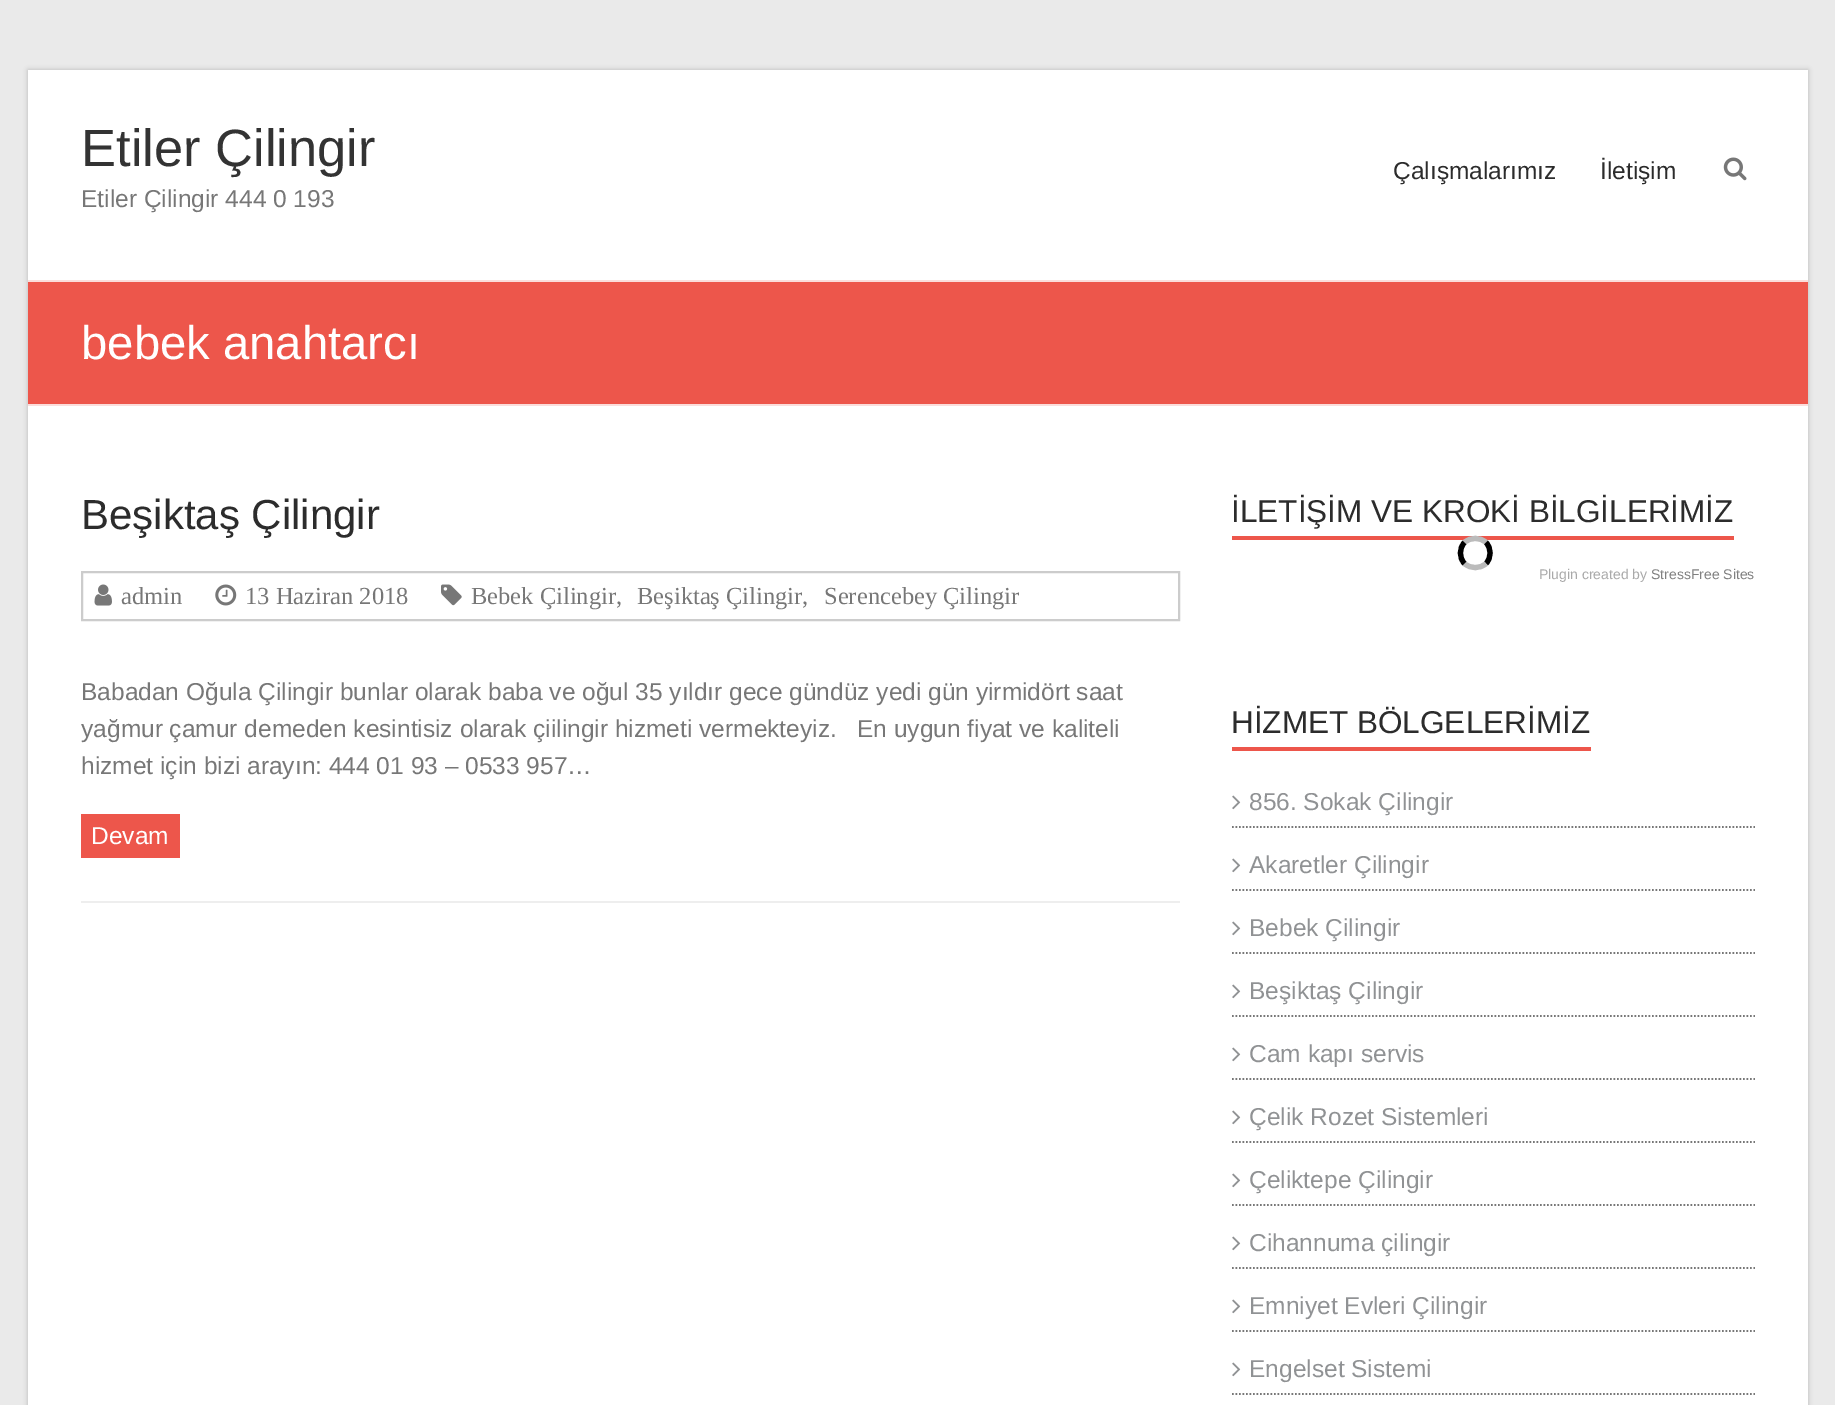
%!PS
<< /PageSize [1835 1405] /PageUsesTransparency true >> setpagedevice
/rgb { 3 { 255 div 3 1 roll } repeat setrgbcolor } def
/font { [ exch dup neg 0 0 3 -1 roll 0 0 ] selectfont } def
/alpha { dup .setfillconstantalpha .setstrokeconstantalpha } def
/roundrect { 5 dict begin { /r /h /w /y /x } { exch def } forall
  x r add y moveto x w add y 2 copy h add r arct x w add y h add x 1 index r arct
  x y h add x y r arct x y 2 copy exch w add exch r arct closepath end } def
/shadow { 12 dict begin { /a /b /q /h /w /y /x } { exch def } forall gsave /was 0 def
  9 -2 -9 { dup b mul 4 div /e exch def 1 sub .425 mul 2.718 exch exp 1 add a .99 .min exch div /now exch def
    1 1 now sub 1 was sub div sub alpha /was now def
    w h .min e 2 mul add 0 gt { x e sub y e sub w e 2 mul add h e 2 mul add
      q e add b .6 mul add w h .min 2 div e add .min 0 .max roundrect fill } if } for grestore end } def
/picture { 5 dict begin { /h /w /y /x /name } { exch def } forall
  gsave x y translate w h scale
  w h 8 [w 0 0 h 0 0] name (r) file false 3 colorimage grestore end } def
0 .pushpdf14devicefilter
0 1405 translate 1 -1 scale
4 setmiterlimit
234 234 234 rgb
0 0 1835 1405 rectfill
0 0 0 rgb
28 70 1780 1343 0 2.5 0.2 shadow
255 255 255 rgb
28 70 1780 1335 rectfill
(img/1.rgb) 1723 157 24 24 picture
[
  [28 282 1780 122 237 86 75]
  [28 280 1780 2 251 221 219]
  [28 404 1780 2 251 221 219]
  [81 901 1099 2 238 238 238]
] { aload pop rgb rectfill } forall
204 204 204 rgb
2 setlinewidth
82 572 1097 48 rectstroke
(img/2.rgb) 94 584 18 22 picture
(img/3.rgb) 215 584 22 22 picture
(img/4.rgb) 441 584 21 22 picture
237 86 75 rgb
81 814 99 44 rectfill
1232 536 502 4 rectfill
187 187 187 rgb
5.2 setlinewidth
1464.5 542.5 moveto 1470.5 537 1480 537 1486 542.5 curveto stroke
0 0 0 rgb
1486 542.5 moveto 1491.5 548 1491.5 558 1486 563.5 curveto stroke
187 187 187 rgb
1486 563.5 moveto 1480 569 1470.5 569 1464.5 563.5 curveto stroke
0 0 0 rgb
1464.5 563.5 moveto 1459 558 1459 548 1464.5 542.5 curveto stroke
237 86 75 rgb
1232 747 359 4 rectfill
119 119 119 rgb
1.8 setlinewidth
[1.75 1.75] 0 setdash
1232 827 moveto 1755 827 lineto stroke
(img/5.rgb) 1232 795 9 15 picture
1232 890 moveto 1755 890 lineto stroke
(img/5.rgb) 1232 858 9 15 picture
1232 953 moveto 1755 953 lineto stroke
(img/5.rgb) 1232 921 9 15 picture
1232 1016 moveto 1755 1016 lineto stroke
(img/5.rgb) 1232 984 9 15 picture
1232 1079 moveto 1755 1079 lineto stroke
(img/5.rgb) 1232 1047 9 15 picture
1232 1142 moveto 1755 1142 lineto stroke
(img/5.rgb) 1232 1110 9 15 picture
1232 1205 moveto 1755 1205 lineto stroke
(img/5.rgb) 1232 1173 9 15 picture
1232 1268 moveto 1755 1268 lineto stroke
(img/5.rgb) 1232 1236 9 15 picture
1232 1331 moveto 1755 1331 lineto stroke
(img/5.rgb) 1232 1299 9 15 picture
1232 1394 moveto 1755 1394 lineto stroke
(img/5.rgb) 1232 1362 9 15 picture
/LiberationSans-Regular 52.5 font
51 51 51 rgb
81 166 moveto (Etiler Çilingir) show
/LiberationSans-Regular 24.5 font
119 119 119 rgb
81 207 moveto (Etiler Çilingir 444 0 193) show
44 44 44 rgb
1393 179 moveto (Çalışmalarımız) show
1600 179 moveto (İletişim) show
/LiberationSans-Regular 47.25 font
255 255 255 rgb
81 359 moveto (bebek anahtarcı) show
/LiberationSans-Regular 42 font
44 44 44 rgb
81 529 moveto (Beşiktaş Çilingir) show
/LiberationSerif-Regular 24.5 font
119 119 119 rgb
[
  [(admin) 121 604]
  [(13 Haziran 2018) 245 604]
  [(Bebek Çilingir,) 471 604]
  [(Beşiktaş Çilingir,) 637 604]
  [(Serencebey Çilingir) 824 604]
] { aload pop moveto show } forall
/LiberationSans-Regular 24.5 font
[
  [(Babadan Oğula Çilingir bunlar olarak baba ve oğul 35 yıldır gece gündüz yedi gün yirmidört saat) 81 700]
  [(yağmur çamur demeden kesintisiz olarak çiilingir hizmeti vermekteyiz.   En uygun fiyat ve kaliteli) 81 737]
  [(hizmet için bizi arayın: 444 01 93 – 0533 957…) 81 774]
] { aload pop moveto show } forall
255 255 255 rgb
91 844 moveto (Devam) show
/LiberationSans-Regular 31.5 font
44 44 44 rgb
1231 522 moveto (İLETİŞİM VE KROKİ BİLGİLERİMİZ) show
/LiberationSans-Regular 14 font
169 169 169 rgb
1539 579 moveto (Plugin created by) show
128 128 128 rgb
1651 579 moveto (StressFree Sites) show
/LiberationSans-Regular 31.5 font
44 44 44 rgb
1231 733 moveto (HİZMET BÖLGELERİMİZ) show
/LiberationSans-Regular 24.5 font
144 146 148 rgb
[
  [(856. Sokak Çilingir) 1249 810]
  [(Akaretler Çilingir) 1249 873]
  [(Bebek Çilingir) 1249 936]
  [(Beşiktaş Çilingir) 1249 999]
  [(Cam kapı servis) 1249 1062]
  [(Çelik Rozet Sistemleri) 1249 1125]
  [(Çeliktepe Çilingir) 1249 1188]
  [(Cihannuma çilingir) 1249 1251]
  [(Emniyet Evleri Çilingir) 1249 1314]
  [(Engelset Sistemi) 1249 1377]
] { aload pop moveto show } forall
.poppdf14devicefilter showpage
